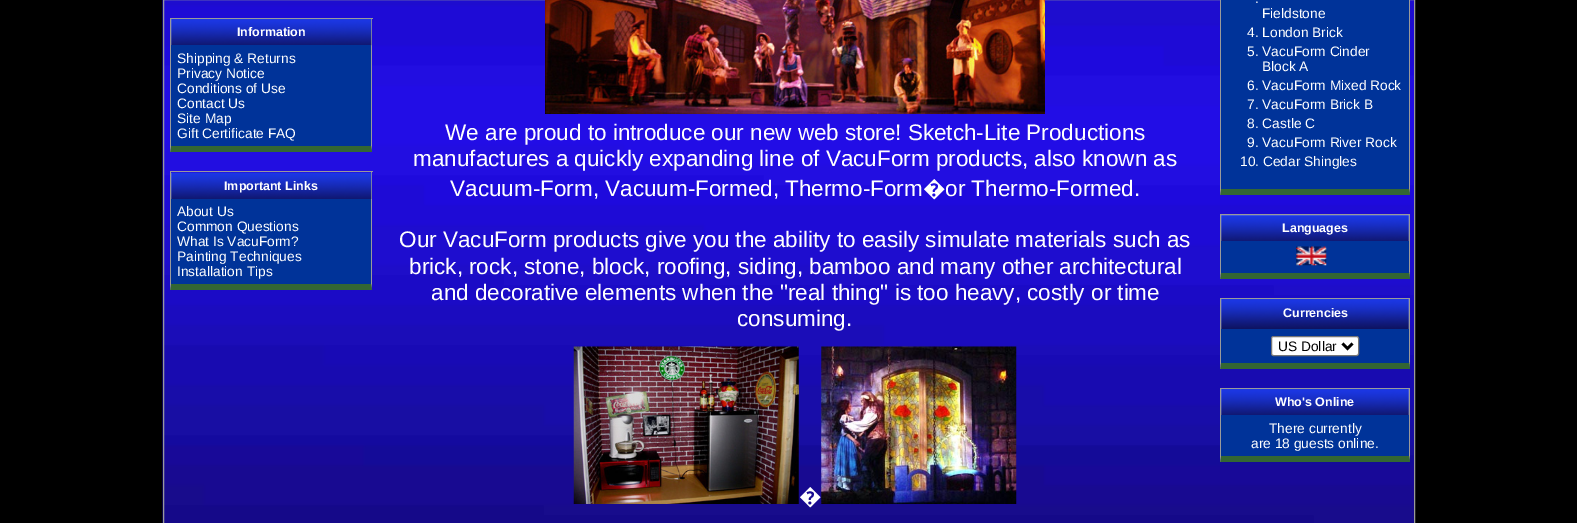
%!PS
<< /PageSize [1577 523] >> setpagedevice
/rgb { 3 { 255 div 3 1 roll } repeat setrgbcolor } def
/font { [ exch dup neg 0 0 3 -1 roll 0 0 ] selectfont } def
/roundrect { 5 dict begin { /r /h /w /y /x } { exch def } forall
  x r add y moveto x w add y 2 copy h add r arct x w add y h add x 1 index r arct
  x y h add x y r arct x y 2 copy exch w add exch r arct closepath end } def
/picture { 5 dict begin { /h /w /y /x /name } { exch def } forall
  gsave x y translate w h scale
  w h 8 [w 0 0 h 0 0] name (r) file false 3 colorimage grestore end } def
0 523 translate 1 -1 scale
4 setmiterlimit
0 0 0 rgb
0 0 1577 523 rectfill
(img/1.rgb) 162 0 1252 523 picture
154 154 154 rgb
163.5 -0.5 1251 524 rectstroke
170 18 203 1 rectfill
372 18 moveto 372 152 lineto 371 146 lineto 371 19 lineto closepath fill
51 102 51 rgb
372 152 moveto 170 152 lineto 171 146 lineto 371 146 lineto closepath fill
154 154 154 rgb
170 152 moveto 170 18 lineto 171 19 lineto 171 146 lineto closepath fill
(img/2.rgb) 171 19 201 27 picture
0 51 153 rgb
171 45 200 101 rectfill
154 154 154 rgb
170 171 203 1 rectfill
372 171 moveto 372 290 lineto 371 284 lineto 371 172 lineto closepath fill
51 102 51 rgb
372 290 moveto 170 290 lineto 171 284 lineto 371 284 lineto closepath fill
154 154 154 rgb
170 290 moveto 170 171 lineto 171 172 lineto 171 284 lineto closepath fill
(img/3.rgb) 171 172 201 27 picture
0 51 153 rgb
171 199 200 85 rectfill
(img/4.rgb) 545 0 500 114 picture
(img/5.rgb) 573 346 226 158 picture
(img/6.rgb) 821 346 196 158 picture
154 154 154 rgb
1410 -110 moveto 1410 195 lineto 1409 189 lineto 1409 -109 lineto closepath fill
51 102 51 rgb
1410 195 moveto 1220 195 lineto 1221 189 lineto 1409 189 lineto closepath fill
154 154 154 rgb
1220 195 moveto 1220 -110 lineto 1221 -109 lineto 1221 189 lineto closepath fill
0 51 153 rgb
1221 0 188 189 rectfill
154 154 154 rgb
1220 214 190 1 rectfill
1410 214 moveto 1410 279 lineto 1409 272 lineto 1409 215 lineto closepath fill
51 102 51 rgb
1410 279 moveto 1220 279 lineto 1221 272 lineto 1409 272 lineto closepath fill
154 154 154 rgb
1220 279 moveto 1220 214 lineto 1221 215 lineto 1221 272 lineto closepath fill
171 187 211 rgb
1221 215 188 26 rectfill
(img/7.rgb) 1221 215 188 26 picture
0 51 153 rgb
1221 241 188 32 rectfill
(img/8.rgb) 1296 246 31 20 picture
154 154 154 rgb
1220 298 190 1 rectfill
1410 298 moveto 1410 369 lineto 1409 362 lineto 1409 299 lineto closepath fill
51 102 51 rgb
1410 369 moveto 1220 369 lineto 1221 362 lineto 1409 362 lineto closepath fill
154 154 154 rgb
1220 369 moveto 1220 298 lineto 1221 299 lineto 1221 362 lineto closepath fill
(img/9.rgb) 1221 299 188 30 picture
0 51 153 rgb
1221 329 188 34 rectfill
255 255 255 rgb
1271.5 336.5 87 19 2 roundrect gsave fill grestore
118 118 118 rgb
stroke
0 0 0 rgb
2.5 setlinewidth
1342.5 343.5 moveto 1347.5 348.5 lineto 1352.5 343.5 lineto stroke
154 154 154 rgb
1220 388 190 1 rectfill
1410 388 moveto 1410 462 lineto 1409 456 lineto 1409 389 lineto closepath fill
51 102 51 rgb
1410 462 moveto 1220 462 lineto 1221 456 lineto 1409 456 lineto closepath fill
154 154 154 rgb
1220 462 moveto 1220 388 lineto 1221 389 lineto 1221 456 lineto closepath fill
(img/10.rgb) 1221 389 188 26 picture
0 51 153 rgb
1221 415 188 41 rectfill
/LiberationSans-Bold 12.5 font
255 255 255 rgb
237 36 moveto (Information) show
/LiberationSans-Regular 13.75 font
[
  [(Shipping & Returns) 177 63]
  [(Privacy Notice) 177 78]
  [(Conditions of Use) 177 93]
  [(Contact Us) 177 108]
  [(Site Map) 177 123]
  [(Gift Certificate FAQ) 177 138]
] { aload pop moveto show } forall
/LiberationSans-Bold 12.5 font
224 190 moveto (Important Links) show
/LiberationSans-Regular 13.75 font
[
  [(About Us) 177 216]
  [(Common Questions) 177 231]
  [(What Is VacuForm?) 177 246]
  [(Painting Techniques) 177 261]
  [(Installation Tips) 177 276]
] { aload pop moveto show } forall
/LiberationSans-Regular 22.5 font
[
  [(We are proud to introduce our new web store! Sketch-Lite Productions) 445 140]
  [(manufactures a quickly expanding line of VacuForm products, also known as) 413 166]
  [(Vacuum-Form, Vacuum-Formed, Thermo-Form) 450 196]
] { aload pop moveto show } forall
/NotoSans-Regular 22.5 font
923 196 moveto (�) show
/LiberationSans-Regular 22.5 font
[
  [(or Thermo-Formed.) 945 196]
  [(Our VacuForm products give you the ability to easily simulate materials such as) 399 247]
  [(brick, rock, stone, block, roofing, siding, bamboo and many other architectural) 409 274]
  [(and decorative elements when the "real thing" is too heavy, costly or time) 431 300]
  [(consuming.) 737 326]
] { aload pop moveto show } forall
/NotoSans-Regular 22.5 font
799 504 moveto (�) show
/LiberationSans-Regular 13.75 font
[
  [(.) 1255 3]
  [(Fieldstone) 1262 18]
  [(4. London Brick) 1247 37]
  [(5. VacuForm Cinder) 1247 56]
  [(Block A) 1262 71]
  [(6. VacuForm Mixed Rock) 1247 90]
  [(7. VacuForm Brick B) 1247 109]
  [(8. Castle C) 1247 128]
  [(9. VacuForm River Rock) 1247 147]
  [(10. Cedar Shingles) 1240 166]
] { aload pop moveto show } forall
/LiberationSans-Bold 12.5 font
1282 232 moveto (Languages) show
1283 317 moveto (Currencies) show
/LiberationSans-Regular 13.75 font
0 0 0 rgb
1278 351 moveto (US Dollar) show
/LiberationSans-Bold 12.5 font
255 255 255 rgb
1275 406 moveto (Who's Online) show
/LiberationSans-Regular 13.75 font
1269 433 moveto (There currently) show
1251 448 moveto (are 18 guests online.) show
showpage
